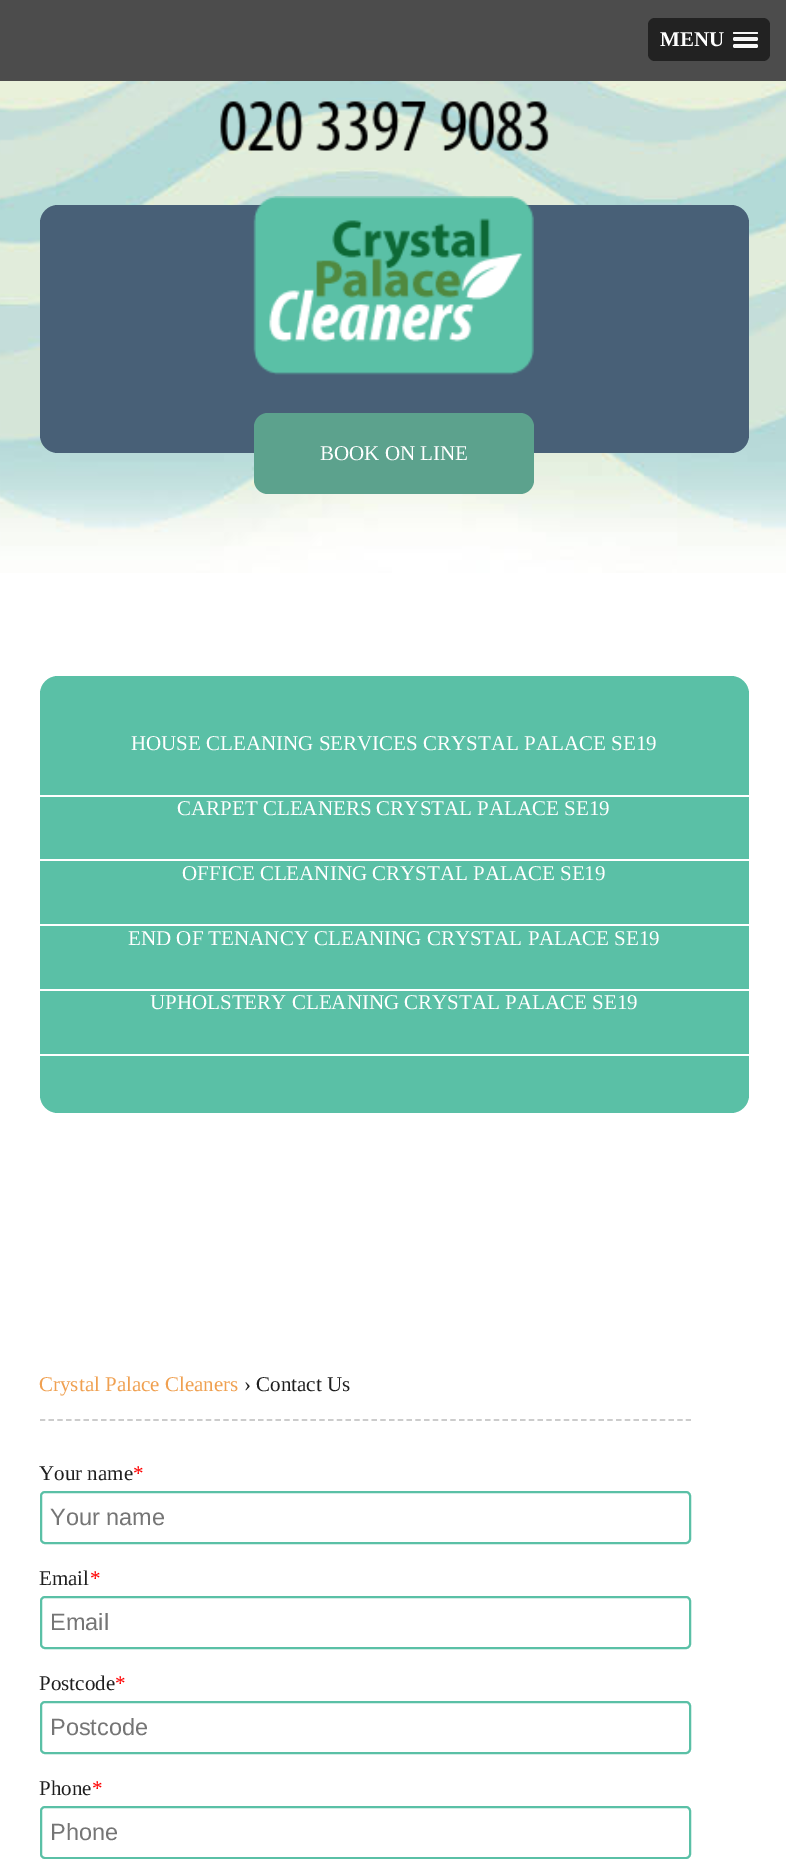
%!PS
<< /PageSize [786 1859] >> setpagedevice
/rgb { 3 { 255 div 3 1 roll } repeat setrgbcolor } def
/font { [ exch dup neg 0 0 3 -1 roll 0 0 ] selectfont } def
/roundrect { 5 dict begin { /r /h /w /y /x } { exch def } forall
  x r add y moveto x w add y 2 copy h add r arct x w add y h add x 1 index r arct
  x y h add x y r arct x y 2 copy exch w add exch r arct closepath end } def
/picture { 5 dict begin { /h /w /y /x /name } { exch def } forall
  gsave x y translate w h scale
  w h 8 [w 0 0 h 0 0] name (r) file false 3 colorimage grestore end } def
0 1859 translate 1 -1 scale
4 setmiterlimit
255 255 255 rgb
0 0 786 1859 rectfill
(img/1.rgb) 0 81 786 492 picture
76 76 76 rgb
0 0 786 81 rectfill
34 34 34 rgb
648 18 122 43 7 roundrect fill
26 26 26 rgb
733.5 33 moveto 733 33.5 lineto 733 34 733.5 35 734 35 curveto 757.5 35 lineto 758 34.5 758 33.5 757.5 33 curveto closepath fill
245 245 245 rgb
733 32 25 2 1 roundrect fill
26 26 26 rgb
733.5 39.5 moveto 733 40 733 40.5 733 41 curveto 733 42 734 43 735 43 curveto 756 43 lineto 757 43 758 42 758 41 curveto 758 40.5 758 40 757.5 39.5 curveto 757 40 756.5 40 756 40 curveto 735 40 lineto 734.5 40 734 40 733.5 39.5 curveto closepath fill
245 245 245 rgb
733 37 25 4 2 roundrect fill
26 26 26 rgb
733.5 46.5 moveto 733 47 733 47.5 733 48 curveto 733 49 734 50 735 50 curveto 756 50 lineto 757 50 758 49 758 48 curveto 758 47.5 758 47 757.5 46.5 curveto 757 47 756.5 47 756 47 curveto 735 47 lineto 734.5 47 734 47 733.5 46.5 curveto closepath fill
245 245 245 rgb
733 44 25 4 2 roundrect fill
(img/2.rgb) 220 101 329 50 picture
72 96 119 rgb
40 205 709 248 18 roundrect fill
(img/3.rgb) 253 196 281 179 picture
92 162 141 rgb
254 413 280 81 14 roundrect fill
90 192 166 rgb
40 676 709 437 18 roundrect fill
[
  [40 795 709 2 255 255 255]
  [40 859 709 2 255 255 255]
  [40 924 709 2 255 255 255]
  [40 989 709 2 255 255 255]
  [40 1054 709 2 255 255 255]
] { aload pop rgb rectfill } forall
204 204 204 rgb
1.8 setlinewidth
[5.25 3.48] 0 setdash
40 1420 moveto 691 1420 lineto stroke
90 192 166 rgb
2 setlinewidth
[] 0 setdash
41 1492 649 51 4 roundrect stroke
41 1597 649 51 4 roundrect stroke
41 1702 649 51 4 roundrect stroke
41 1807 649 51 4 roundrect stroke
/LiberationSerif-Bold 21 font
255 255 255 rgb
660 46 moveto (MENU) show
/LiberationSerif-Regular 21 font
[
  [(BOOK ON LINE) 320 460]
  [(HOUSE CLEANING SERVICES CRYSTAL PALACE SE19) 131 750]
  [(CARPET CLEANERS CRYSTAL PALACE SE19) 177 815]
  [(OFFICE CLEANING CRYSTAL PALACE SE19) 182 880]
  [(END OF TENANCY CLEANING CRYSTAL PALACE SE19) 128 945]
  [(UPHOLSTERY CLEANING CRYSTAL PALACE SE19) 150 1009]
] { aload pop moveto show } forall
240 160 80 rgb
39 1391 moveto (Crystal Palace Cleaners) show
31 31 31 rgb
244 1391 moveto (› Contact Us) show
39 1480 moveto (Your name) show
255 0 0 rgb
133 1480 moveto (*) show
/LiberationSans-Regular 23.5 font
117 117 117 rgb
50 1525 moveto (Your name) show
/LiberationSerif-Regular 21 font
31 31 31 rgb
39 1585 moveto (Email) show
255 0 0 rgb
90 1585 moveto (*) show
/LiberationSans-Regular 23.5 font
117 117 117 rgb
50 1630 moveto (Email) show
/LiberationSerif-Regular 21 font
31 31 31 rgb
39 1690 moveto (Postcode) show
255 0 0 rgb
115 1690 moveto (*) show
/LiberationSans-Regular 23.5 font
117 117 117 rgb
50 1735 moveto (Postcode) show
/LiberationSerif-Regular 21 font
31 31 31 rgb
39 1795 moveto (Phone) show
255 0 0 rgb
92 1795 moveto (*) show
/LiberationSans-Regular 23.5 font
117 117 117 rgb
50 1840 moveto (Phone) show
showpage
